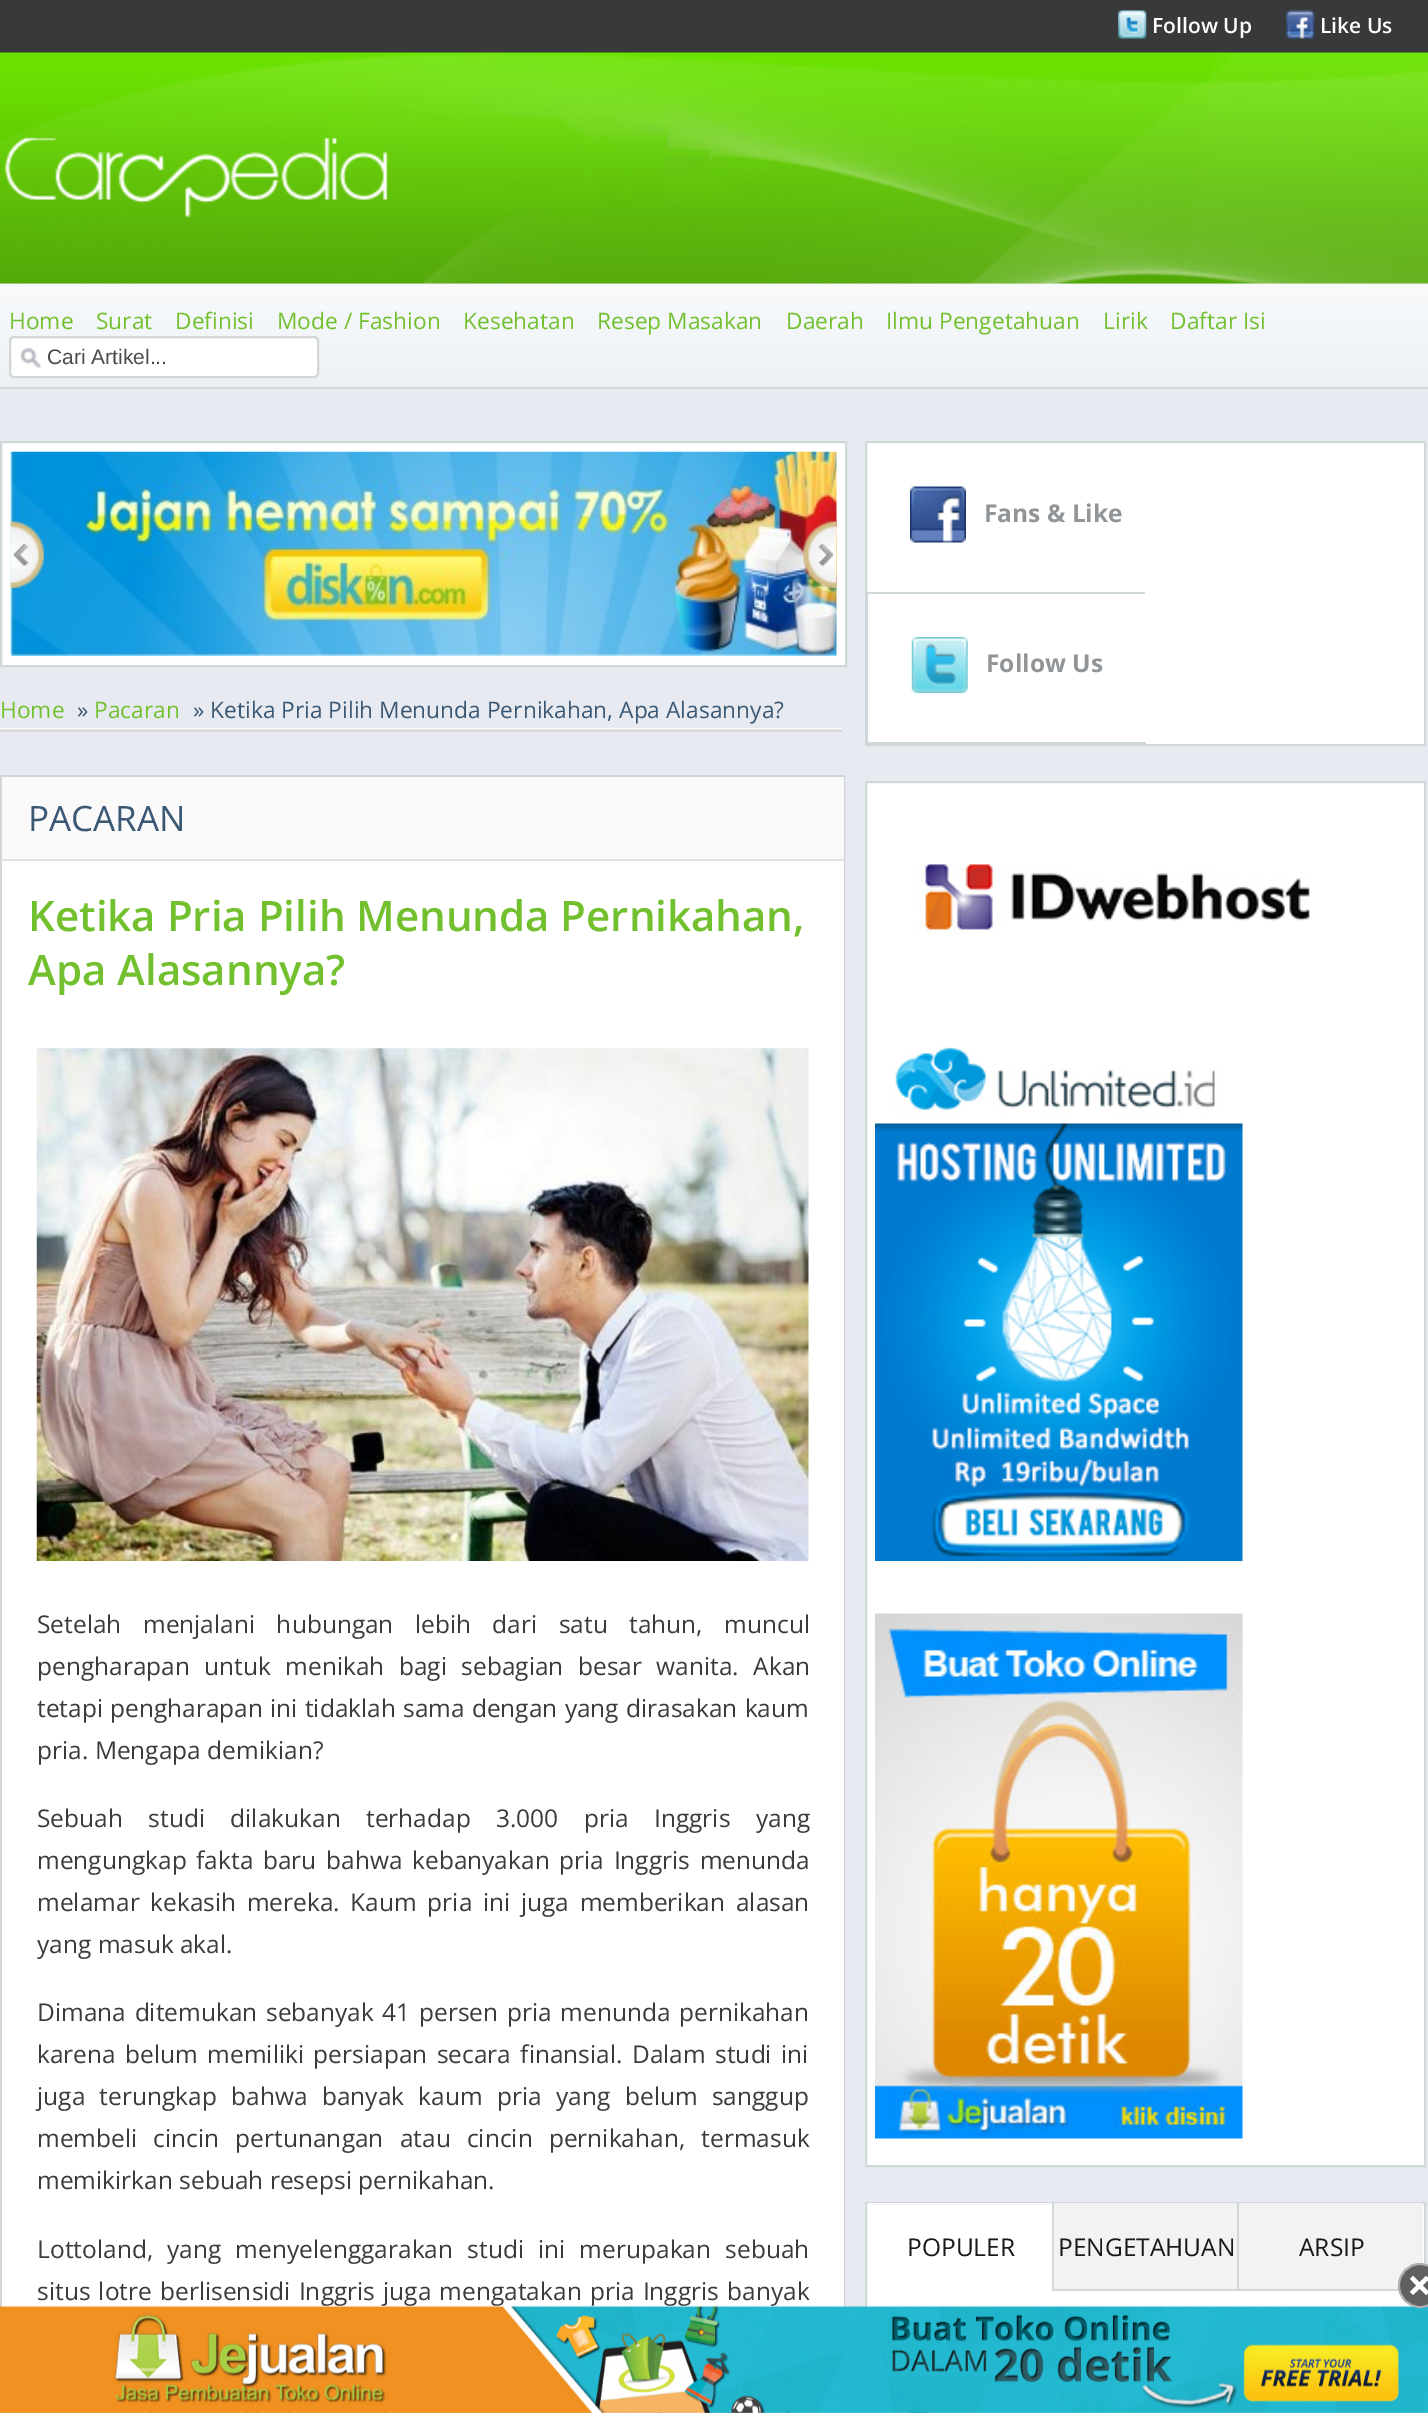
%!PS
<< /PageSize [1428 2413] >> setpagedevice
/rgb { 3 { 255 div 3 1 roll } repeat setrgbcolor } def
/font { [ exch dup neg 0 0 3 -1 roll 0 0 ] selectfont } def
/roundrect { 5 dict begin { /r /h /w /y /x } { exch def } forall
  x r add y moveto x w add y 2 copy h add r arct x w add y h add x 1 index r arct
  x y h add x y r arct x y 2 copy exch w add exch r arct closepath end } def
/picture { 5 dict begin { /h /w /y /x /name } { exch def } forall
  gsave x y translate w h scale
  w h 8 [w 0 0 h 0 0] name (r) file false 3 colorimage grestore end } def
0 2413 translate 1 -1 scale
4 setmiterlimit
231 234 241 rgb
0 0 1428 2413 rectfill
56 57 59 rgb
0 0 1428 53 rectfill
(img/1.rgb) 1118 10 29 29 picture
(img/2.rgb) 1286 10 29 29 picture
(img/3.rgb) 0 52 1428 232 picture
(img/4.rgb) 4 137 384 81 picture
gsave 0 284 moveto 1428 284 lineto 1428 387 lineto 0 387 lineto closepath clip newpath
<< /ShadingType 2 /ColorSpace /DeviceRGB /Coords [714 283 714 387] /Extend [true true] /Function << /FunctionType 3 /Domain [0 1] /Functions [<< /FunctionType 2 /Domain [0 1] /C0 [0.976 0.98 0.988] /C1 [0.949 0.965 0.976] /N 1 >> << /FunctionType 2 /Domain [0 1] /C0 [0.949 0.965 0.976] /C1 [0.929 0.941 0.961] /N 1 >>] /Bounds [0.47] /Encode [0 1 0 1] >> >> shfill grestore
207 215 217 rgb
0 387 1428 2 rectfill
255 255 255 rgb
9 336 310 42 5 roundrect fill
(img/5.rgb) 20 347 21 21 picture
209 214 217 rgb
2 setlinewidth
10 337 308 40 4 roundrect stroke
255 255 255 rgb
1 442 moveto 846 442 lineto 846 666 lineto 1 666 lineto closepath gsave fill grestore
207 215 217 rgb
stroke
(img/6.rgb) 10 451 827 206 picture
(img/7.rgb) 10 521 34 67 picture
(img/8.rgb) 803 521 34 67 picture
(img/9.rgb) 0 728 842 4 picture
209 215 215 rgb
1 776 843 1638 rectstroke
[
  [2 777 842 82 250 250 250]
  [2 859 842 2 225 225 225]
  [2 861 842 1552 255 255 255]
] { aload pop rgb rectfill } forall
(img/10.rgb) 36 1048 773 513 picture
866 442 moveto 1425 442 lineto 1425 745 lineto 866 745 lineto closepath gsave fill grestore
208 216 218 rgb
stroke
207 215 217 rgb
867 593 1 151 rectfill
866 592 279 2 rectfill
(img/11.rgb) 910 486 56 57 picture
868 742 278 2 rectfill
(img/12.rgb) 911 637 57 56 picture
255 255 255 rgb
866 782 moveto 1425 782 lineto 1425 2166 lineto 866 2166 lineto closepath gsave fill grestore
208 216 218 rgb
stroke
(img/13.rgb) 917 864 393 70 picture
(img/14.rgb) 875 1047 368 514 picture
(img/15.rgb) 875 1613 368 526 picture
255 255 255 rgb
866 2203 moveto 1425 2203 lineto 1425 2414 lineto 866 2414 lineto closepath gsave fill grestore
208 216 218 rgb
stroke
[
  [1052 2203 2 88 208 216 218]
  [868 2203 184 1 255 255 255]
  [1237 2203 2 88 208 216 218]
  [1054 2203 183 86 243 242 242]
  [1054 2289 183 2 208 216 218]
  [1239 2203 184 86 243 242 242]
  [1239 2289 160 2 208 216 218]
] { aload pop rgb rectfill } forall
(img/16.rgb) 909 2412 20 1 picture
/OpenSans-SemiBold 21 font
255 255 255 rgb
1152 33 moveto (Follow Up) show
1320 33 moveto (Like Us) show
/OpenSans-Regular 22.75 font
114 192 46 rgb
[
  [(Home) 9 329]
  [(Surat) 96 329]
  [(Definisi) 175 329]
  [(Mode / Fashion) 277 329]
  [(Kesehatan) 463 329]
  [(Resep Masakan) 597 329]
  [(Daerah) 786 329]
  [(Ilmu Pengetahuan) 886 329]
  [(Lirik) 1103 329]
  [(Daftar Isi) 1170 329]
] { aload pop moveto show } forall
/LiberationSans-Regular 21 font
75 75 75 rgb
47 364 moveto (Cari Artikel...) show
/OpenSans-Regular 22.75 font
114 192 46 rgb
0 718 moveto (Home) show
58 88 116 rgb
77 718 moveto (») show
114 192 46 rgb
94 718 moveto (Pacaran) show
58 88 116 rgb
193 718 moveto (» Ketika Pria Pilih Menunda Pernikahan, Apa Alasannya?) show
/OpenSans-Regular 35 font
28 831 moveto (PACARAN) show
/OpenSans-SemiBold 42 font
114 192 46 rgb
28 931 moveto (Ketika Pria Pilih Menunda Pernikahan,) show
28 985 moveto (Apa Alasannya?) show
/OpenSans-Regular 24.5 font
58 60 59 rgb
37 1633 moveto 15 0 32 (Setelah menjalani hubungan lebih dari satu tahun, muncul) widthshow
37 1675 moveto 8 0 32 (pengharapan untuk menikah bagi sebagian besar wanita. Akan) widthshow
37 1717 moveto 0.75 0 32 (tetapi pengharapan ini tidaklah sama dengan yang dirasakan kaum) widthshow
37 1759 moveto (pria. Mengapa demikian?) show
37 1827 moveto 19 0 32 (Sebuah studi dilakukan terhadap 3.000 pria Inggris yang) widthshow
37 1869 moveto 3.25 0 32 (mengungkap fakta baru bahwa kebanyakan pria Inggris menunda) widthshow
37 1911 moveto 4.25 0 32 (melamar kekasih mereka. Kaum pria ini juga memberikan alasan) widthshow
37 1953 moveto (yang masuk akal.) show
37 2021 moveto 2.25 0 32 (Dimana ditemukan sebanyak 41 persen pria menunda pernikahan) widthshow
37 2063 moveto 3 0 32 (karena belum memiliki persiapan secara finansial. Dalam studi ini) widthshow
37 2105 moveto 8 0 32 (juga terungkap bahwa banyak kaum pria yang belum sanggup) widthshow
37 2147 moveto 9.75 0 32 (membeli cincin pertunangan atau cincin pernikahan, termasuk) widthshow
37 2189 moveto (memikirkan sebuah resepsi pernikahan.) show
37 2258 moveto 7.75 0 32 (Lottoland, yang menyelenggarakan studi ini merupakan sebuah) widthshow
37 2300 moveto 1.75 0 32 (situs lotre berlisensidi Inggris juga mengatakan pria Inggris banyak) widthshow
/OpenSans-Bold 24.5 font
145 149 152 rgb
984 522 moveto (Fans & Like) show
986 672 moveto (Follow Us) show
/OpenSans-Regular 24.5 font
24 25 27 rgb
[
  [(POPULER) 907 2256]
  [(PENGETAHUAN) 1058 2256]
  [(ARSIP) 1299 2256]
] { aload pop moveto show } forall
(img/17.rgb) 0 2305 1428 108 picture
96 95 97 rgb
1399 2264 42 43 21 roundrect gsave fill grestore
174 174 174 rgb
stroke
/OpenSans-Bold 44 font
255 255 255 rgb
1407 2301 moveto (×) show
showpage
